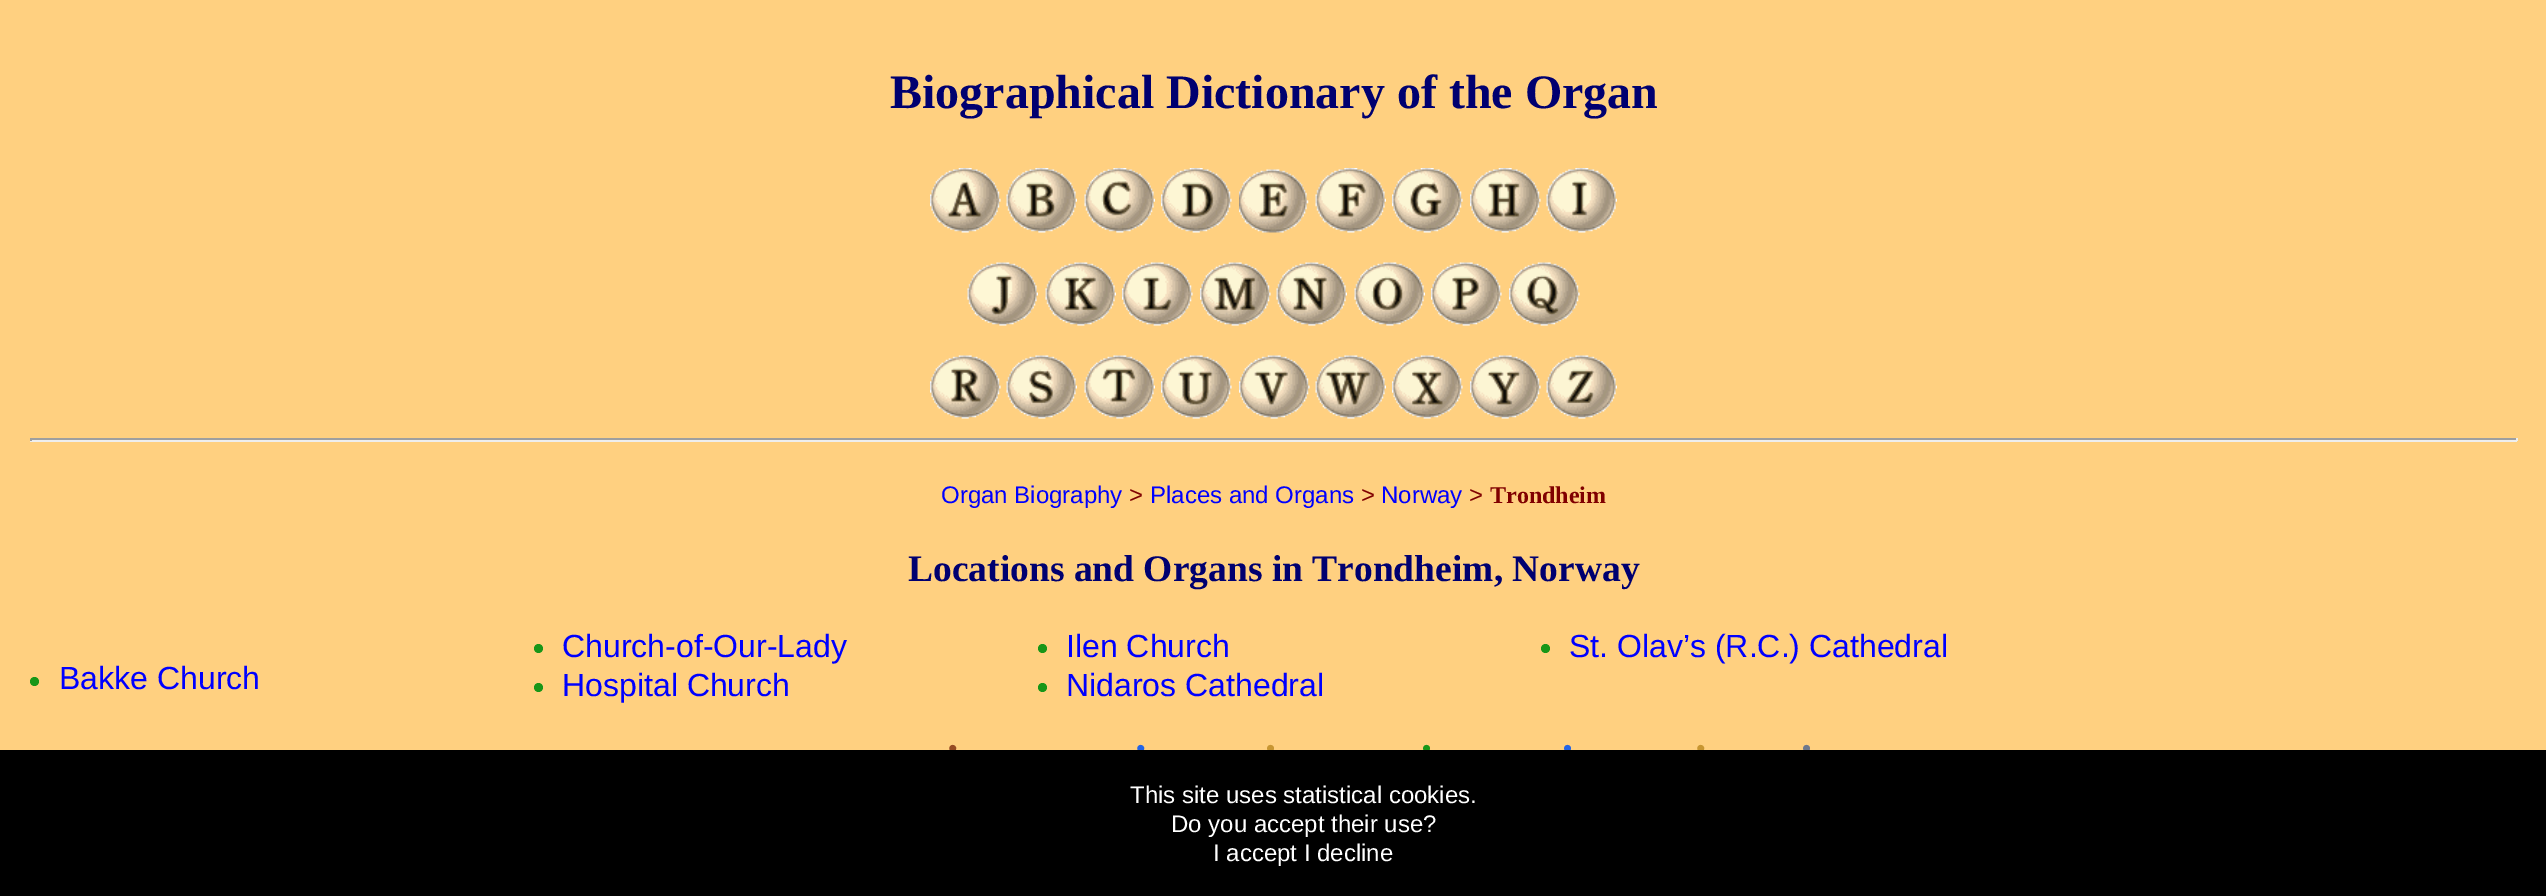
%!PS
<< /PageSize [2546 896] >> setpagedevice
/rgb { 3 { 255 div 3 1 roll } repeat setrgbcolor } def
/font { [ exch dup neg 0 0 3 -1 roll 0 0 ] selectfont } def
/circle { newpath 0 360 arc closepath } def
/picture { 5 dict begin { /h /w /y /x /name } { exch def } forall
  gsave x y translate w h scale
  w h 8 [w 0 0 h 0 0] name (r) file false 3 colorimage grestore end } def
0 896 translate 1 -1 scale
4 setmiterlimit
255 208 128 rgb
0 0 2546 896 rectfill
(img/1.rgb) 930 168 71 65 picture
(img/2.rgb) 1006 168 71 65 picture
(img/3.rgb) 1084 168 71 65 picture
(img/4.rgb) 1161 168 71 65 picture
(img/5.rgb) 1239 169 70 64 picture
(img/6.rgb) 1315 168 71 65 picture
(img/7.rgb) 1392 168 71 65 picture
(img/8.rgb) 1470 168 71 65 picture
(img/9.rgb) 1546 168 71 65 picture
(img/10.rgb) 967 262 71 64 picture
(img/11.rgb) 1045 262 71 64 picture
(img/12.rgb) 1122 262 71 64 picture
(img/13.rgb) 1200 262 71 64 picture
(img/14.rgb) 1276 262 71 64 picture
(img/15.rgb) 1354 262 71 64 picture
(img/16.rgb) 1431 262 71 64 picture
(img/17.rgb) 1509 262 71 64 picture
(img/18.rgb) 930 355 71 64 picture
(img/19.rgb) 1006 355 71 64 picture
(img/20.rgb) 1084 355 71 64 picture
(img/21.rgb) 1161 355 71 64 picture
(img/22.rgb) 1239 355 71 64 picture
(img/23.rgb) 1315 355 71 64 picture
(img/24.rgb) 1392 355 71 64 picture
(img/25.rgb) 1470 355 71 64 picture
(img/26.rgb) 1546 355 71 64 picture
[
  [30 438 2487 2 159 159 159]
  [2516 438 2 3 238 238 238]
  [30 440 2487 2 238 238 238]
  [30 438 2 3 159 159 159]
] { aload pop rgb rectfill } forall
24 150 24 rgb
538.5 648.5 4.5 circle fill
1042.5 648.5 4.5 circle fill
1545.5 648.5 4.5 circle fill
34.5 681.5 4.5 circle fill
538.5 687.5 4.5 circle fill
1042.5 687.5 4.5 circle fill
/LiberationSerif-Bold 48 font
0 0 112 rgb
890 108 moveto (Biographical Dictionary of the Organ) show
/LiberationSans-Regular 24 font
0 0 255 rgb
941 503 moveto (Organ Biography) show
128 0 0 rgb
1129 503 moveto (>) show
0 0 255 rgb
1150 503 moveto (Places and Organs) show
128 0 0 rgb
1361 503 moveto (>) show
0 0 255 rgb
1381 503 moveto (Norway) show
128 0 0 rgb
1469 503 moveto (>) show
/LiberationSerif-Bold 24 font
1490 503 moveto (Trondheim) show
/LiberationSerif-Bold 37.5 font
0 0 112 rgb
908 581 moveto (Locations and Organs in Trondheim, Norway) show
/LiberationSans-Regular 32 font
0 0 255 rgb
[
  [(Church-of-Our-Lady) 562 657]
  [(Ilen Church) 1066 657]
  [(St. Olav’s \(R.C.\) Cathedral) 1569 657]
  [(Bakke Church) 59 689]
  [(Hospital Church) 562 696]
  [(Nidaros Cathedral) 1066 696]
] { aload pop moveto show } forall
/LiberationSans-Italic 26 font
150 75 35 rgb
948 757 moveto (•) show
35 100 230 rgb
1136 757 moveto (•) show
/LiberationSans-Regular 26 font
200 150 50 rgb
1266 757 moveto (•) show
24 150 24 rgb
1422 757 moveto (•) show
35 100 230 rgb
1563 757 moveto (•) show
/LiberationSans-Italic 26 font
200 150 50 rgb
1696 757 moveto (•) show
/LiberationSans-Regular 26 font
110 120 140 rgb
1802 757 moveto (•) show
0 0 0 rgb
0 750 2546 146 rectfill
/LiberationSans-Regular 24 font
255 255 255 rgb
[
  [(This site uses statistical cookies.) 1130 803]
  [(Do you accept their use?) 1171 832]
  [(I accept I decline) 1213 861]
] { aload pop moveto show } forall
showpage
